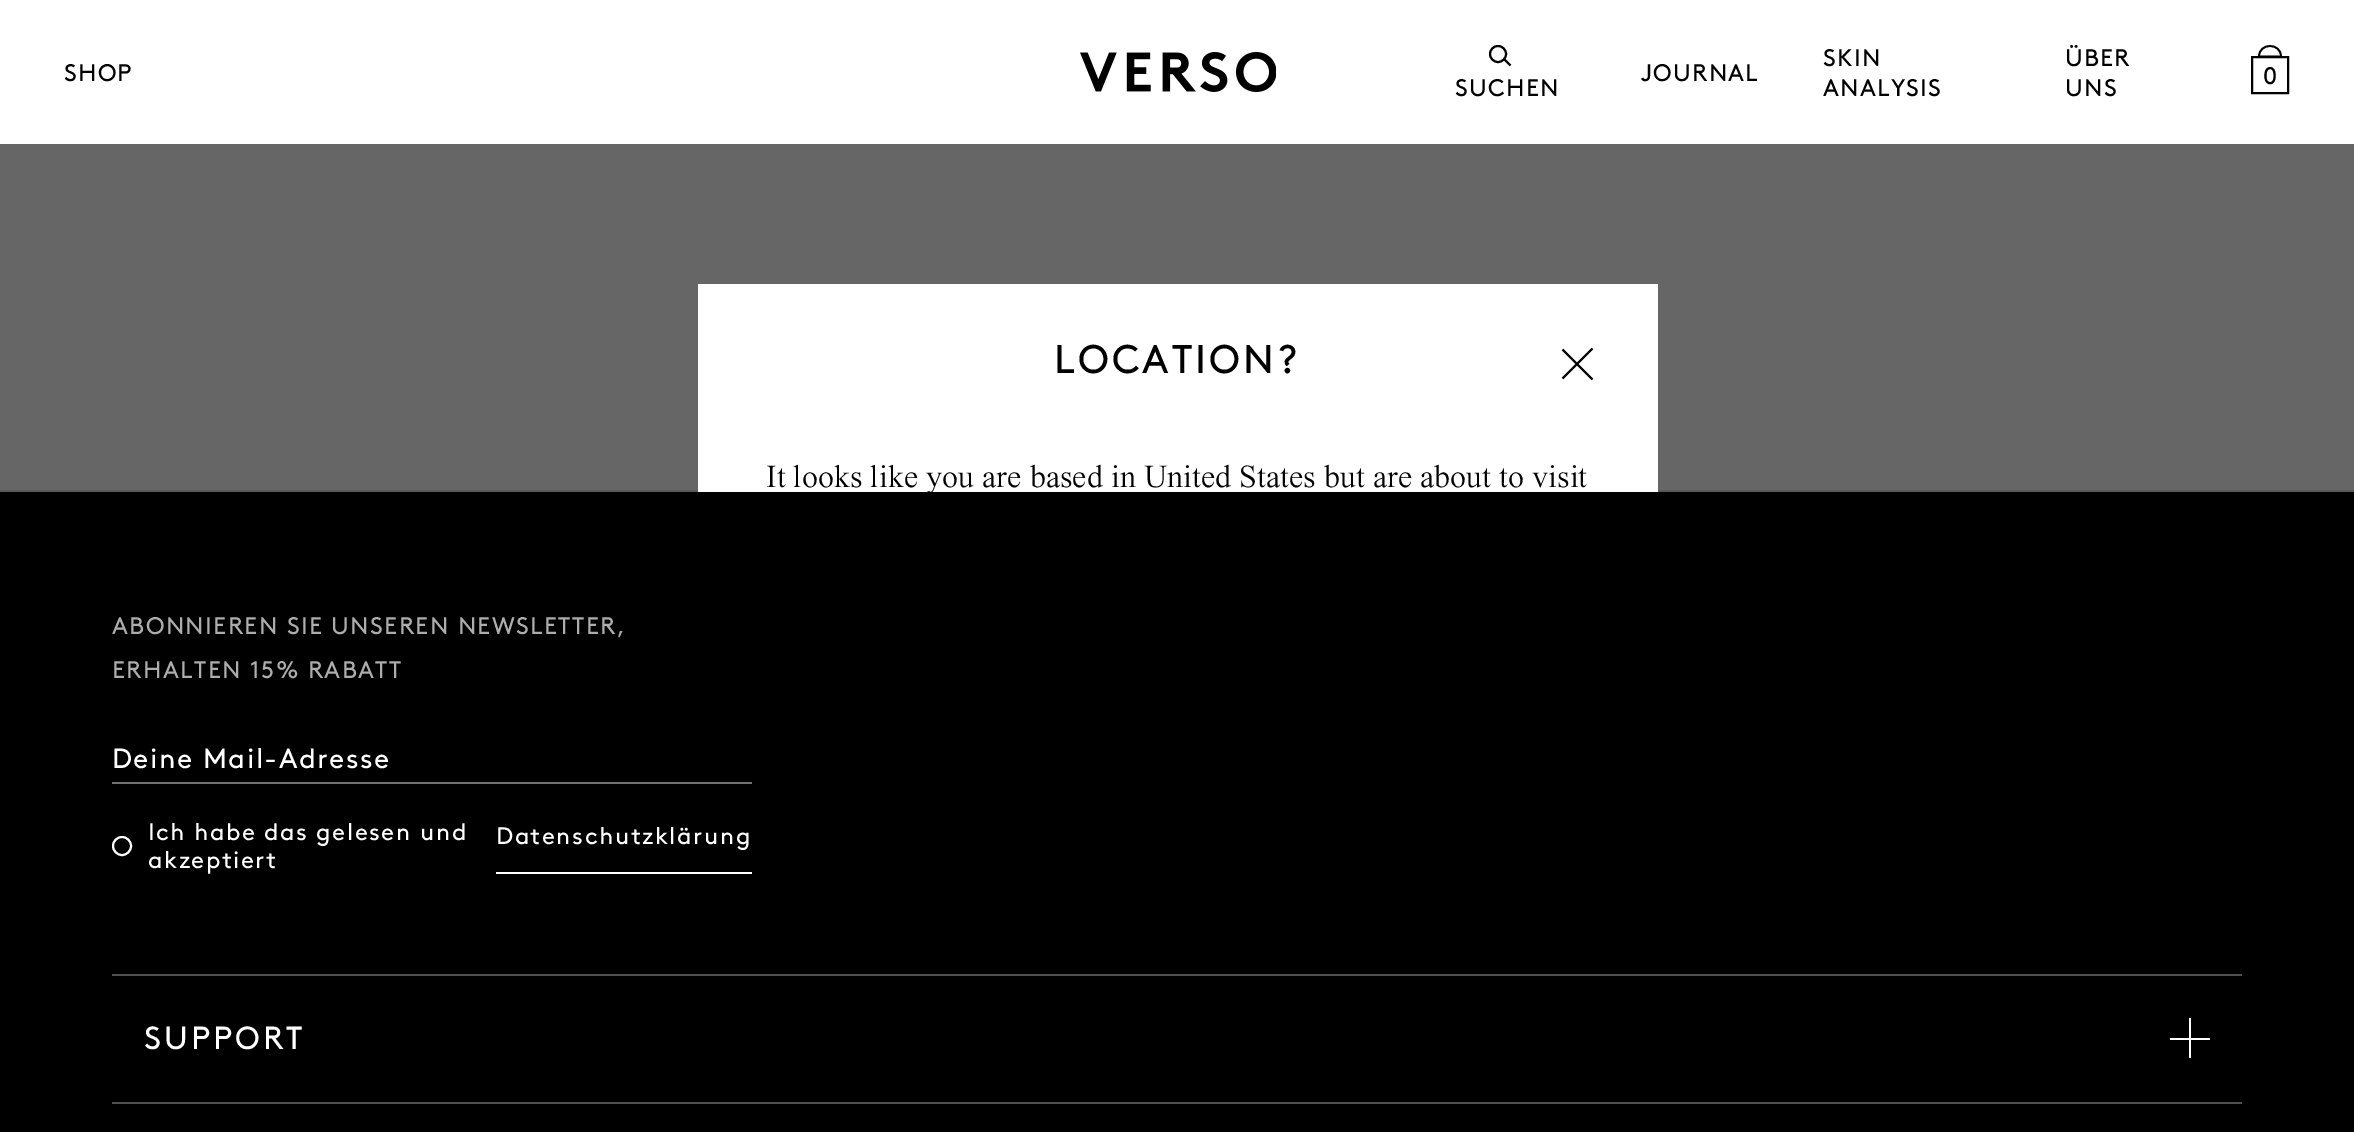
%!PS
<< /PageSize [2354 1132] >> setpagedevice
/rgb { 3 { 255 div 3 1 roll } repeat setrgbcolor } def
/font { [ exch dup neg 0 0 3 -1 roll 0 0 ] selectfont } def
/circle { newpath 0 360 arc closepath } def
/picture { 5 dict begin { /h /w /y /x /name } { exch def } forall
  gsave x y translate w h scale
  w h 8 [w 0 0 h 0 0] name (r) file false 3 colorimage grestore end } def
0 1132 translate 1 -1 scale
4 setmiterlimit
102 102 102 rgb
0 0 2354 1132 rectfill
255 255 255 rgb
0 0 2354 144 rectfill
(img/1.rgb) 1080 52 196 40 picture
0 0 0 rgb
1.8 setlinewidth
2281 56.5 moveto 2281 42.5 2259 42.5 2259 56.5 curveto closepath stroke
2 setlinewidth
2252 57 36 36 rectstroke
1498 54 8 circle stroke
1504.5 59.5 moveto 1510.5 65.5 lineto stroke
[
  [0 490 2354 2 90 90 90]
  [0 492 2354 640 0 0 0]
  [112 782 640 2 112 112 112]
] { aload pop rgb rectfill } forall
255 255 255 rgb
122 846 9 circle stroke
[
  [496 872 256 2 255 255 255]
  [112 1102 2130 2 79 79 79]
  [112 974 2130 2 79 79 79]
  [2189 1018 2 40 255 255 255]
  [2170 1038 40 2 255 255 255]
  [698 284 960 208 255 255 255]
] { aload pop rgb rectfill } forall
0 0 0 rgb
2.1 setlinewidth
1562.5 349.5 moveto 1592.5 379.5 lineto 1592.5 348.5 moveto 1562.5 378.5 lineto stroke
/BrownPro-Regular 24 font
64 81 moveto 1.25 0 (SHOP) ashow
1641 81 moveto 1.25 0 (JOURNAL) ashow
1823 66 moveto 1.25 0 (SKIN) ashow
1823 96 moveto 1.25 0 (ANALYSIS) ashow
2065 66 moveto 1.25 0 (ÜBER) ashow
2065 96 moveto 1.25 0 (UNS) ashow
2263 84 moveto (0) show
1455 96 moveto 1.25 0 (SUCHEN) ashow
173 173 173 rgb
112 634 moveto 1.4 0 (ABONNIEREN SIE UNSEREN NEWSLETTER,) ashow
112 678 moveto 1.4 0 (ERHALTEN 15% RABATT) ashow
/BrownPro-Regular 28 font
255 255 255 rgb
112 768 moveto 1.4 0 (Deine Mail-Adresse) ashow
/BrownPro-Regular 24 font
148 840 moveto 1.4 0 (Ich habe das gelesen und) ashow
148 868 moveto 1.4 0 (akzeptiert) ashow
496 844 moveto 1.4 0 (Datenschutzklärung) ashow
/BrownPro-Regular 32 font
144 1049 moveto 3 0 (SUPPORT) ashow
/BrownPro-Regular 40 font
0 0 0 rgb
1054 373 moveto 3 0 (LOCATION?) ashow
/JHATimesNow-Light 32 font
766 487 moveto (It looks like you are based in United States but are about to visit) show
showpage
